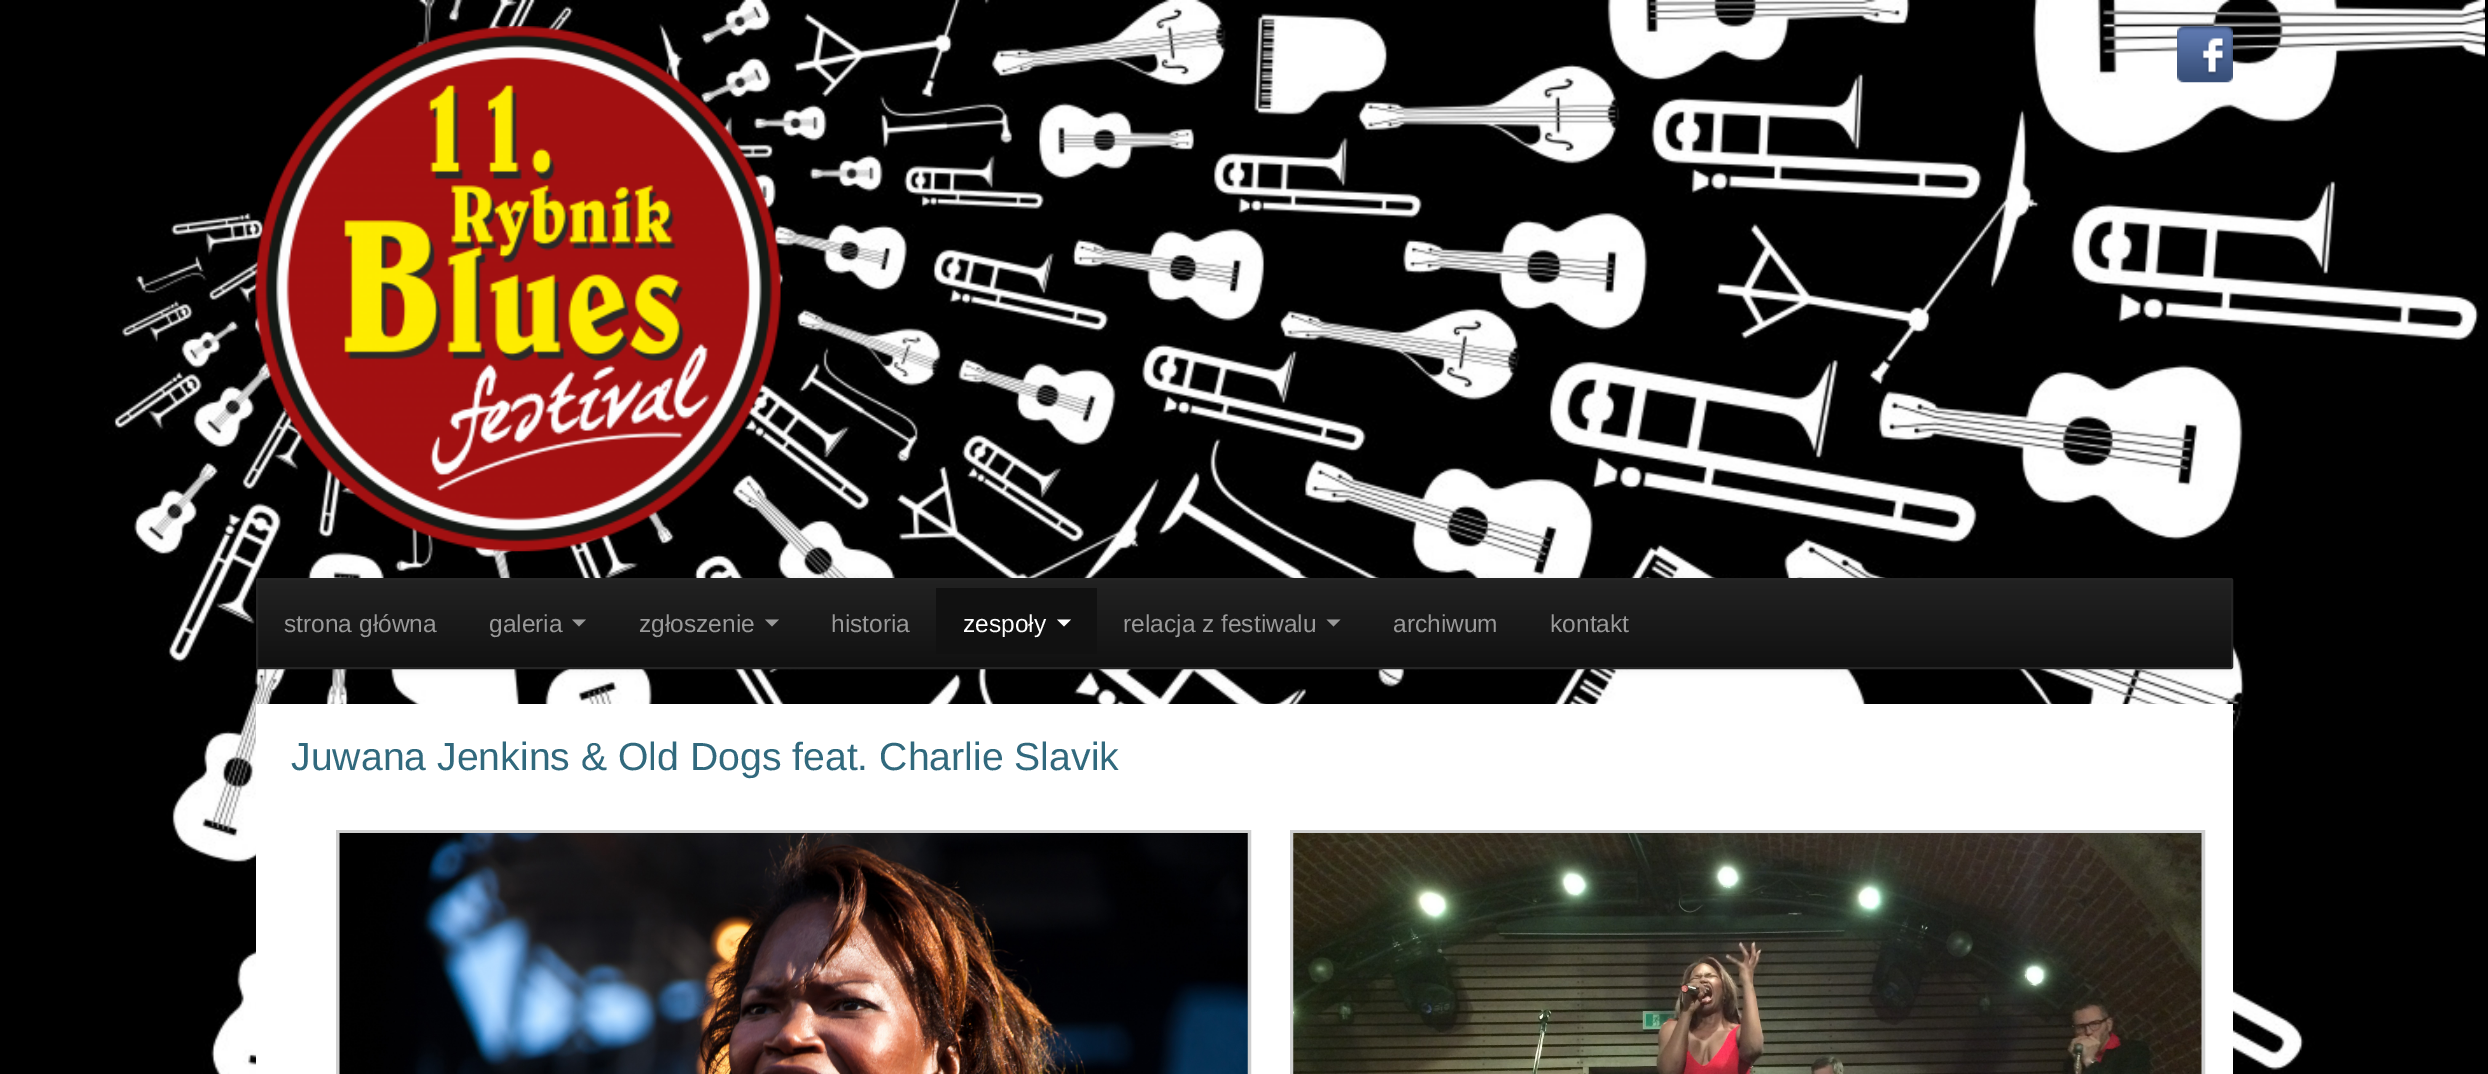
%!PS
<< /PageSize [2488 1074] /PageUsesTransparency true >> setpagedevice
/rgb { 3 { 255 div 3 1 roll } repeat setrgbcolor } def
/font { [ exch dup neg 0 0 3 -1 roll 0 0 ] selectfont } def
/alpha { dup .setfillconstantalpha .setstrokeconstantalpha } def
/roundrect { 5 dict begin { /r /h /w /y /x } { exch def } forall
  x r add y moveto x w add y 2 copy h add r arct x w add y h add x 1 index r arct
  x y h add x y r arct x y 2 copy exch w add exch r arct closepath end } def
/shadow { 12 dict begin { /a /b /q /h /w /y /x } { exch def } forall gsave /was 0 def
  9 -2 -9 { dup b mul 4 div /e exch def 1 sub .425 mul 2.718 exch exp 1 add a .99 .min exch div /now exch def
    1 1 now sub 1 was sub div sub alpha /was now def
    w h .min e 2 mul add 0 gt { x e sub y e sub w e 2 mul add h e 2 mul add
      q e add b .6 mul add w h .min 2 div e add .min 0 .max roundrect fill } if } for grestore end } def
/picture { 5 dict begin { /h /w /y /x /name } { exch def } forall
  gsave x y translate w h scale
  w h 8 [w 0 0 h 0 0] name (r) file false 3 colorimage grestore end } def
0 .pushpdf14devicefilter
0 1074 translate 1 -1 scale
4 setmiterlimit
0 0 0 rgb
0 0 2488 1074 rectfill
(img/1.rgb) 104 0 2381 1074 picture
(img/2.rgb) 255 26 526 526 picture
(img/3.rgb) 2177 26 56 57 picture
256 579 1977 91 2 3.5 0.07 shadow
gsave 256 579 moveto 2233 579 lineto 2233 667 lineto 256 667 lineto closepath clip newpath
<< /ShadingType 2 /ColorSpace /DeviceRGB /Coords [1244 579 1244 667] /Extend [true true] /Function << /FunctionType 2 /Domain [0 1] /C0 [0.133 0.133 0.133] /C1 [0.067 0.067 0.067] /N 1 >> >> shfill grestore
37 37 37 rgb
2 setlinewidth
257 579 1975 89 1 roundrect stroke
153 153 153 rgb
572 619.5 moveto 586 619.5 lineto 579 626.5 lineto closepath fill
765 619.5 moveto 779 619.5 lineto 772 626.5 lineto closepath fill
17 17 17 rgb
936 588 161 66 rectfill
255 255 255 rgb
1057 619.5 moveto 1071 619.5 lineto 1064 626.5 lineto closepath fill
153 153 153 rgb
1326.5 619.5 moveto 1340.5 619.5 lineto 1333.5 626.5 lineto closepath fill
255 255 255 rgb
256 704 1977 370 rectfill
207 207 207 rgb
4 setlinewidth
338 832 911 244 rectstroke
(img/4.rgb) 339 833 909 241 picture
1292 832 911 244 rectstroke
(img/5.rgb) 1293 833 909 241 picture
/LiberationSans-Regular 24.5 font
153 153 153 rgb
[
  [(strona główna) 284 632]
  [(galeria) 489 632]
  [(zgłoszenie) 639 632]
  [(historia) 831 632]
] { aload pop moveto show } forall
255 255 255 rgb
963 632 moveto (zespoły) show
153 153 153 rgb
[
  [(relacja z festiwalu) 1123 632]
  [(archiwum) 1393 632]
  [(kontakt) 1550 632]
] { aload pop moveto show } forall
/LiberationSans-Regular 39.2 font
49 105 125 rgb
291 770 moveto (Juwana Jenkins & Old Dogs feat. Charlie Slavik) show
.poppdf14devicefilter showpage
